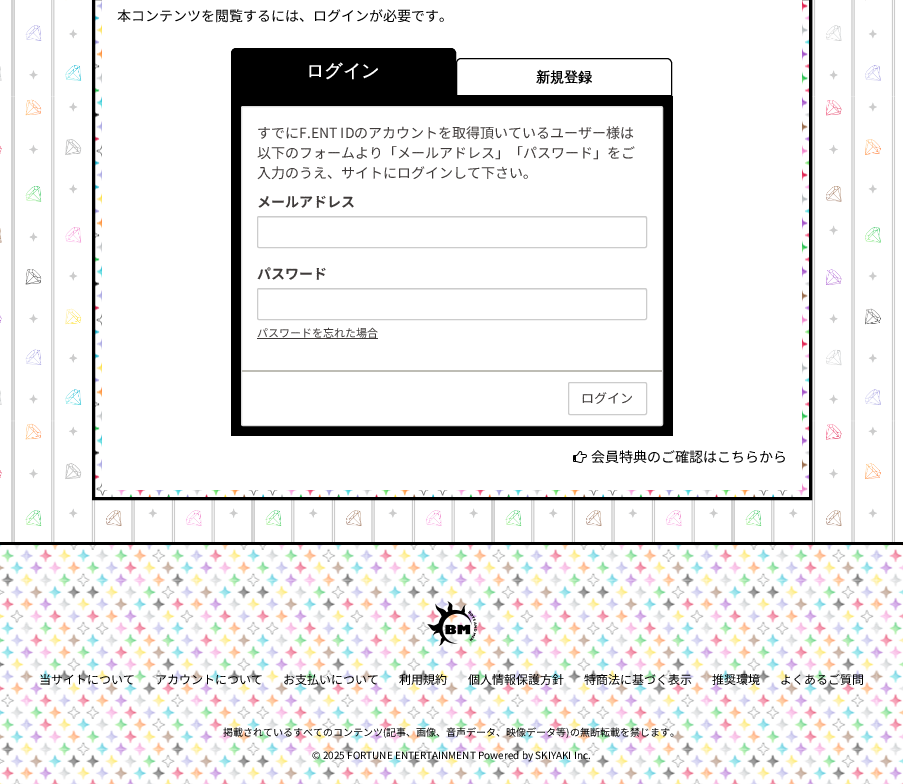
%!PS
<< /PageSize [903 784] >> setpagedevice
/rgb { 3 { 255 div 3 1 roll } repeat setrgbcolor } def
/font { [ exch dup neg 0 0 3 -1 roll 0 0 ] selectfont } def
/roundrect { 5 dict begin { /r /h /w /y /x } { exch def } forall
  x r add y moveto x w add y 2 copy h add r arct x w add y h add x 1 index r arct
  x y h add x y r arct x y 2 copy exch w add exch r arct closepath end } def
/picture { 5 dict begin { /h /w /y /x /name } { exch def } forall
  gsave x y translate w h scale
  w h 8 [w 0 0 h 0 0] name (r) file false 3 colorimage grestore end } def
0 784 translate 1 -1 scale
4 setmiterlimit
255 255 255 rgb
0 0 903 784 rectfill
(img/1.rgb) 0 0 896 542 picture
95 0 707 497 rectfill
(img/2.rgb) 95 0 714 497 picture
0 0 0 rgb
3 setlinewidth
93.5 -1.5 717 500 rectstroke
255 255 255 rgb
102 0 700 490 rectfill
0 0 0 rgb
236 48.5 moveto 451 48.5 lineto 453.5 48.5 455.5 50.5 455.5 53 curveto 455.5 95.5 lineto 231.5 95.5 lineto 231.5 53 lineto 231.5 50.5 233.5 48.5 236 48.5 curveto closepath gsave fill grestore
1 setlinewidth
stroke
461 58.5 moveto 667 58.5 lineto 669.5 58.5 671.5 60.5 671.5 63 curveto 671.5 95.5 lineto 456.5 95.5 lineto 456.5 63 lineto 456.5 60.5 458.5 58.5 461 58.5 curveto closepath stroke
231 96 442 340 rectfill
255 255 255 rgb
241.5 106.5 421 319 1.5 roundrect gsave fill grestore
221 221 221 rgb
stroke
236 236 236 rgb
259 217 moveto 258 218 lineto 645 218 lineto 646 219 lineto 646 218 646 217 645 217 curveto closepath fill
204 204 204 rgb
257.5 216.5 389 31 1.5 roundrect stroke
236 236 236 rgb
259 289 moveto 258 290 lineto 645 290 lineto 646 291 lineto 646 290 646 289 645 289 curveto closepath fill
204 204 204 rgb
257.5 288.5 389 31 1.5 roundrect stroke
63 59 58 rgb
257 338 121 1 rectfill
190 189 181 rgb
242 370 420 2 rectfill
204 204 204 rgb
568.5 382.5 78 32 1.5 roundrect stroke
(img/3.rgb) 573 451 14 12 picture
(img/4.rgb) 0 545 903 239 picture
0 0 0 rgb
0 542 903 3 rectfill
(img/5.rgb) 427 601 50 45 picture
/NotoSansJP-Regular 14 font
117 21 moveto (本コンテンツを閲覧するには、ログインが必要です。) show
/WenQuanYiZenHei-Bold 18 font
255 255 255 rgb
306 77 moveto (ログイン) show
/WenQuanYiZenHei-Bold 14 font
0 0 0 rgb
536 82 moveto (新規登録) show
/NotoSansJP-Regular 14 font
63 59 58 rgb
[
  [(すでにF.ENT IDのアカウントを取得頂いているユーザー様は) 257 138]
  [(以下のフォームより「メールアドレス」「パスワード」をご) 257 158]
  [(入力のうえ、サイトにログインして下さい。) 257 178]
] { aload pop moveto show } forall
/NotoSansJP-Bold 14 font
257 207 moveto (メールアドレス) show
257 279 moveto (パスワード) show
/NotoSansJP-Regular 11 font
257 337 moveto (パスワードを忘れた場合) show
/NotoSansJP-Regular 13 font
581 403 moveto (ログイン) show
/NotoSansJP-Regular 14 font
0 0 0 rgb
591 462 moveto (会員特典のご確認はこちらから) show
/NotoSansJP-Regular 12 font
[
  [(当サイトについて) 39 684]
  [(アカウントについて) 155 684]
  [(お支払いについて) 283 684]
  [(利用規約) 399 684]
  [(個人情報保護方針) 468 684]
  [(特商法に基づく表示) 584 684]
  [(推奨環境) 712 684]
  [(よくあるご質問) 780 684]
] { aload pop moveto show } forall
/NotoSansJP-Regular 10 font
223 736 moveto (掲載されているすべてのコンテンツ\(記事、画像、音声データ、映像データ等\)の無断転載を禁じます。) show
312 759 moveto (© 2025 FORTUNE ENTERTAINMENT Powered by SKIYAKI Inc.) show
showpage
